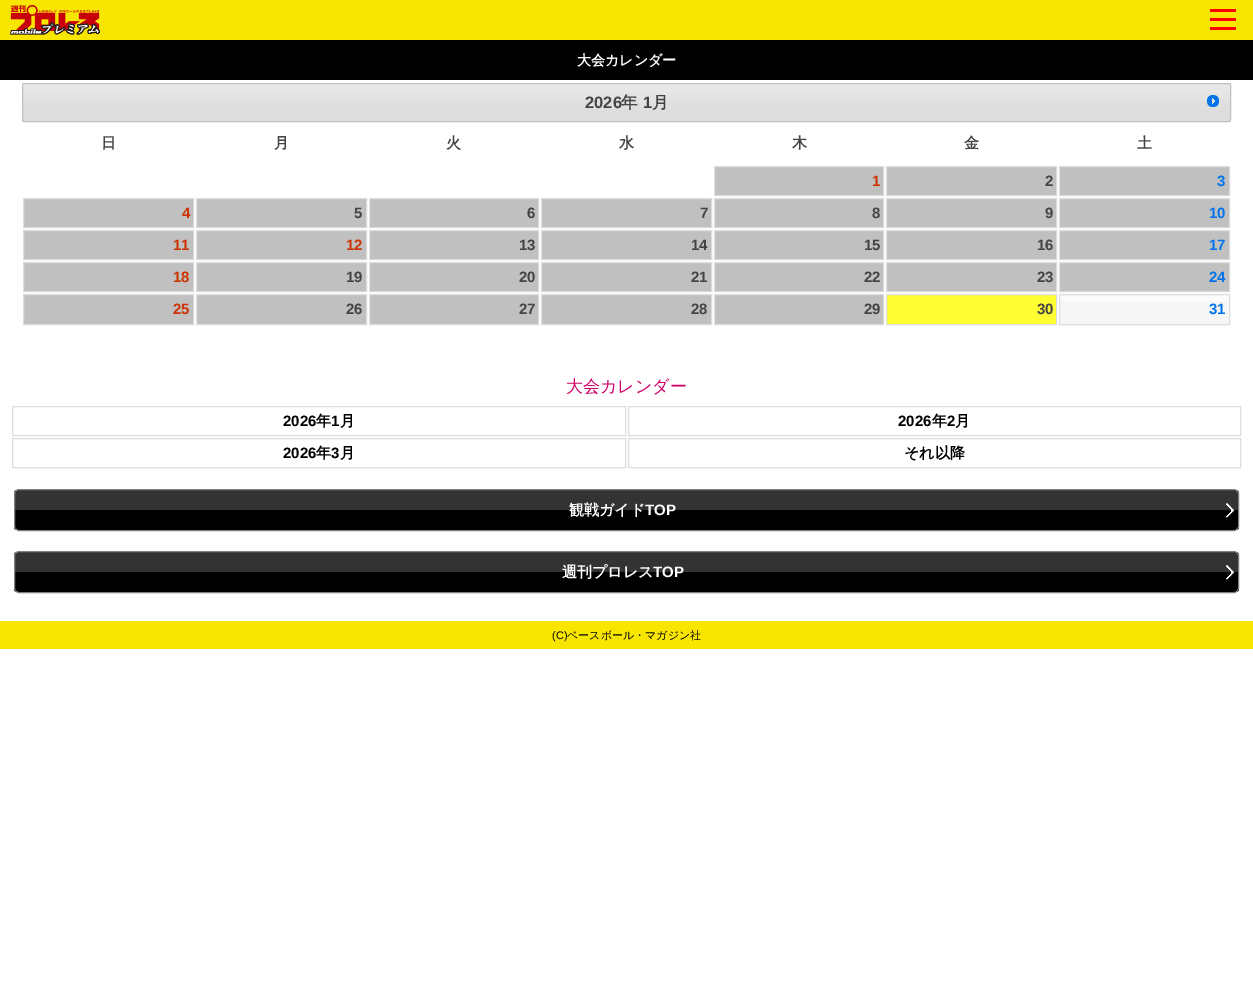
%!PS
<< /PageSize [1253 1002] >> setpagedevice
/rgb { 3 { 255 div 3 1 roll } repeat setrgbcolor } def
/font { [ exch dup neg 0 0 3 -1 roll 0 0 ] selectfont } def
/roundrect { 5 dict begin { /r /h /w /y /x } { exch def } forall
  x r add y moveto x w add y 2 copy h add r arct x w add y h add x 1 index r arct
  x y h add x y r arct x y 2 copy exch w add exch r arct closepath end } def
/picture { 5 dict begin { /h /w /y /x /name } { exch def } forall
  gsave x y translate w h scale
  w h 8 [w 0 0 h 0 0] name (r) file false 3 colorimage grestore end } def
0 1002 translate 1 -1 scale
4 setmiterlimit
255 255 255 rgb
0 0 1253 1002 rectfill
[
  [0 0 1253 40 249 230 0]
  [1210 9 26 3 255 0 0]
  [1210 18 26 3 255 0 0]
  [1210 27 26 3 255 0 0]
] { aload pop rgb rectfill } forall
(img/1.rgb) 10 5 90 30 picture
0 0 0 rgb
0 40 1253 40 rectfill
(img/2.rgb) 22 83 1209 39 picture
192 192 192 rgb
22.5 83.5 1208 38 1.5 roundrect stroke
(img/3.rgb) 1207 95 12 12 picture
714.5 166.5 moveto 883.5 166.5 lineto 883.5 195.5 lineto 714.5 195.5 lineto closepath gsave fill grestore
221 221 221 rgb
stroke
192 192 192 rgb
886.5 166.5 moveto 1056.5 166.5 lineto 1056.5 195.5 lineto 886.5 195.5 lineto closepath gsave fill grestore
221 221 221 rgb
stroke
192 192 192 rgb
1059.5 166.5 moveto 1229.5 166.5 lineto 1229.5 195.5 lineto 1059.5 195.5 lineto closepath gsave fill grestore
221 221 221 rgb
stroke
192 192 192 rgb
23.5 198.5 moveto 193.5 198.5 lineto 193.5 227.5 lineto 23.5 227.5 lineto closepath gsave fill grestore
221 221 221 rgb
stroke
192 192 192 rgb
196.5 198.5 moveto 366.5 198.5 lineto 366.5 227.5 lineto 196.5 227.5 lineto closepath gsave fill grestore
221 221 221 rgb
stroke
192 192 192 rgb
369.5 198.5 moveto 538.5 198.5 lineto 538.5 227.5 lineto 369.5 227.5 lineto closepath gsave fill grestore
221 221 221 rgb
stroke
192 192 192 rgb
541.5 198.5 moveto 711.5 198.5 lineto 711.5 227.5 lineto 541.5 227.5 lineto closepath gsave fill grestore
221 221 221 rgb
stroke
192 192 192 rgb
714.5 198.5 moveto 883.5 198.5 lineto 883.5 227.5 lineto 714.5 227.5 lineto closepath gsave fill grestore
221 221 221 rgb
stroke
192 192 192 rgb
886.5 198.5 moveto 1056.5 198.5 lineto 1056.5 227.5 lineto 886.5 227.5 lineto closepath gsave fill grestore
221 221 221 rgb
stroke
192 192 192 rgb
1059.5 198.5 moveto 1229.5 198.5 lineto 1229.5 227.5 lineto 1059.5 227.5 lineto closepath gsave fill grestore
221 221 221 rgb
stroke
192 192 192 rgb
23.5 230.5 moveto 193.5 230.5 lineto 193.5 259.5 lineto 23.5 259.5 lineto closepath gsave fill grestore
221 221 221 rgb
stroke
192 192 192 rgb
196.5 230.5 moveto 366.5 230.5 lineto 366.5 259.5 lineto 196.5 259.5 lineto closepath gsave fill grestore
221 221 221 rgb
stroke
192 192 192 rgb
369.5 230.5 moveto 538.5 230.5 lineto 538.5 259.5 lineto 369.5 259.5 lineto closepath gsave fill grestore
221 221 221 rgb
stroke
192 192 192 rgb
541.5 230.5 moveto 711.5 230.5 lineto 711.5 259.5 lineto 541.5 259.5 lineto closepath gsave fill grestore
221 221 221 rgb
stroke
192 192 192 rgb
714.5 230.5 moveto 883.5 230.5 lineto 883.5 259.5 lineto 714.5 259.5 lineto closepath gsave fill grestore
221 221 221 rgb
stroke
192 192 192 rgb
886.5 230.5 moveto 1056.5 230.5 lineto 1056.5 259.5 lineto 886.5 259.5 lineto closepath gsave fill grestore
221 221 221 rgb
stroke
192 192 192 rgb
1059.5 230.5 moveto 1229.5 230.5 lineto 1229.5 259.5 lineto 1059.5 259.5 lineto closepath gsave fill grestore
221 221 221 rgb
stroke
192 192 192 rgb
23.5 262.5 moveto 193.5 262.5 lineto 193.5 291.5 lineto 23.5 291.5 lineto closepath gsave fill grestore
221 221 221 rgb
stroke
192 192 192 rgb
196.5 262.5 moveto 366.5 262.5 lineto 366.5 291.5 lineto 196.5 291.5 lineto closepath gsave fill grestore
221 221 221 rgb
stroke
192 192 192 rgb
369.5 262.5 moveto 538.5 262.5 lineto 538.5 291.5 lineto 369.5 291.5 lineto closepath gsave fill grestore
221 221 221 rgb
stroke
192 192 192 rgb
541.5 262.5 moveto 711.5 262.5 lineto 711.5 291.5 lineto 541.5 291.5 lineto closepath gsave fill grestore
221 221 221 rgb
stroke
192 192 192 rgb
714.5 262.5 moveto 883.5 262.5 lineto 883.5 291.5 lineto 714.5 291.5 lineto closepath gsave fill grestore
221 221 221 rgb
stroke
192 192 192 rgb
886.5 262.5 moveto 1056.5 262.5 lineto 1056.5 291.5 lineto 886.5 291.5 lineto closepath gsave fill grestore
221 221 221 rgb
stroke
192 192 192 rgb
1059.5 262.5 moveto 1229.5 262.5 lineto 1229.5 291.5 lineto 1059.5 291.5 lineto closepath gsave fill grestore
221 221 221 rgb
stroke
192 192 192 rgb
23.5 294.5 moveto 193.5 294.5 lineto 193.5 324.5 lineto 23.5 324.5 lineto closepath gsave fill grestore
221 221 221 rgb
stroke
192 192 192 rgb
196.5 294.5 moveto 366.5 294.5 lineto 366.5 324.5 lineto 196.5 324.5 lineto closepath gsave fill grestore
221 221 221 rgb
stroke
192 192 192 rgb
369.5 294.5 moveto 538.5 294.5 lineto 538.5 324.5 lineto 369.5 324.5 lineto closepath gsave fill grestore
221 221 221 rgb
stroke
192 192 192 rgb
541.5 294.5 moveto 711.5 294.5 lineto 711.5 324.5 lineto 541.5 324.5 lineto closepath gsave fill grestore
221 221 221 rgb
stroke
192 192 192 rgb
714.5 294.5 moveto 883.5 294.5 lineto 883.5 324.5 lineto 714.5 324.5 lineto closepath gsave fill grestore
221 221 221 rgb
stroke
255 255 51 rgb
886.5 294.5 moveto 1056.5 294.5 lineto 1056.5 324.5 lineto 886.5 324.5 lineto closepath gsave fill grestore
221 221 221 rgb
stroke
246 246 246 rgb
1060 301 169 23 rectfill
251 251 251 rgb
1059 295 171 6 rectfill
221 221 221 rgb
1059.5 294.5 170 30 rectstroke
12.5 406.5 613 29 rectstroke
628.5 406.5 612 29 rectstroke
12.5 438.5 613 29 rectstroke
628.5 438.5 612 29 rectstroke
gsave
14 489 1225 42 5 roundrect clip newpath
51 51 51 rgb
14 490 1225 20 rectfill
0 0 0 rgb
14 510 1225 20 rectfill
grestore
128 128 128 rgb
14.5 489.5 1224 41 4.5 roundrect stroke
255 255 255 rgb
1227 503 moveto 1234 510.5 lineto 1227 517.5 lineto 1220 510.5 lineto closepath fill
gsave 1224 503 moveto 1231 510.5 lineto 1224 517.5 lineto 1217 510.5 lineto closepath clip newpath
<< /ShadingType 2 /ColorSpace /DeviceRGB /Coords [1224 503 1224 517] /Extend [true true] /Function << /FunctionType 3 /Domain [0 1] /Functions [<< /FunctionType 2 /Domain [0 1] /C0 [0.2 0.2 0.2] /C1 [0.2 0.2 0.2] /N 1 >> << /FunctionType 2 /Domain [0 1] /C0 [0 0 0] /C1 [0 0 0] /N 1 >>] /Bounds [0.5] /Encode [0 1 0 1] >> >> shfill grestore
gsave
14 551 1225 42 5 roundrect clip newpath
51 51 51 rgb
14 552 1225 20 rectfill
0 0 0 rgb
14 572 1225 20 rectfill
grestore
128 128 128 rgb
14.5 551.5 1224 41 4.5 roundrect stroke
255 255 255 rgb
1227 565 moveto 1234 572.5 lineto 1227 579.5 lineto 1220 572.5 lineto closepath fill
gsave 1224 565 moveto 1231 572.5 lineto 1224 579.5 lineto 1217 572.5 lineto closepath clip newpath
<< /ShadingType 2 /ColorSpace /DeviceRGB /Coords [1224 565 1224 579] /Extend [true true] /Function << /FunctionType 3 /Domain [0 1] /Functions [<< /FunctionType 2 /Domain [0 1] /C0 [0.2 0.2 0.2] /C1 [0.2 0.2 0.2] /N 1 >> << /FunctionType 2 /Domain [0 1] /C0 [0 0 0] /C1 [0 0 0] /N 1 >>] /Bounds [0.5] /Encode [0 1 0 1] >> >> shfill grestore
249 230 0 rgb
0 621 1253 28 rectfill
/WenQuanYiZenHei-Bold 14 font
255 255 255 rgb
577 65 moveto (大会カレンダー) show
/LiberationSans-Bold 16.5 font
68 68 68 rgb
585 108 moveto (2026) show
/WenQuanYiZenHei-Bold 16.5 font
621 108 moveto (年) show
/LiberationSans-Bold 16.5 font
643 108 moveto (1) show
/WenQuanYiZenHei-Bold 16.5 font
652 108 moveto (月) show
/WenQuanYiZenHei-Bold 15 font
[
  [(日) 101 148]
  [(月) 274 148]
  [(火) 446 148]
  [(水) 619 148]
  [(木) 792 148]
  [(金) 964 148]
  [(土) 1137 148]
] { aload pop moveto show } forall
/LiberationSans-Bold 15 font
204 51 0 rgb
872 186 moveto (1) show
68 68 68 rgb
1045 186 moveto (2) show
0 115 234 rgb
1217 186 moveto (3) show
204 51 0 rgb
182 218 moveto (4) show
68 68 68 rgb
[
  [(5) 354 218]
  [(6) 527 218]
  [(7) 700 218]
  [(8) 872 218]
  [(9) 1045 218]
] { aload pop moveto show } forall
0 115 234 rgb
1209 218 moveto (10) show
204 51 0 rgb
173 250 moveto (11) show
346 250 moveto (12) show
68 68 68 rgb
[
  [(13) 519 250]
  [(14) 691 250]
  [(15) 864 250]
  [(16) 1037 250]
] { aload pop moveto show } forall
0 115 234 rgb
1209 250 moveto (17) show
204 51 0 rgb
173 282 moveto (18) show
68 68 68 rgb
[
  [(19) 346 282]
  [(20) 519 282]
  [(21) 691 282]
  [(22) 864 282]
  [(23) 1037 282]
] { aload pop moveto show } forall
0 115 234 rgb
1209 282 moveto (24) show
204 51 0 rgb
173 314 moveto (25) show
68 68 68 rgb
[
  [(26) 346 314]
  [(27) 519 314]
  [(28) 691 314]
  [(29) 864 314]
  [(30) 1037 314]
] { aload pop moveto show } forall
0 115 234 rgb
1209 314 moveto (31) show
/WenQuanYiZenHei-Medium 17 font
204 0 102 rgb
566 392 moveto (大会カレンダー) show
/LiberationSans-Bold 15 font
0 0 0 rgb
283 426 moveto (2026) show
/WenQuanYiZenHei-Bold 15 font
316 426 moveto (年) show
/LiberationSans-Bold 15 font
331 426 moveto (1) show
/WenQuanYiZenHei-Bold 15 font
340 426 moveto (月) show
/LiberationSans-Bold 15 font
898 426 moveto (2026) show
/WenQuanYiZenHei-Bold 15 font
932 426 moveto (年) show
/LiberationSans-Bold 15 font
947 426 moveto (2) show
/WenQuanYiZenHei-Bold 15 font
955 426 moveto (月) show
/LiberationSans-Bold 15 font
283 458 moveto (2026) show
/WenQuanYiZenHei-Bold 15 font
316 458 moveto (年) show
/LiberationSans-Bold 15 font
331 458 moveto (3) show
/WenQuanYiZenHei-Bold 15 font
340 458 moveto (月) show
904 458 moveto (それ以降) show
255 255 255 rgb
569 515 moveto (観戦ガイド) show
/LiberationSans-Bold 15 font
645 515 moveto (TOP) show
/WenQuanYiZenHei-Bold 15 font
562 577 moveto (週刊プロレス) show
/LiberationSans-Bold 15 font
653 577 moveto (TOP) show
/LiberationSans-Regular 11 font
0 0 0 rgb
552 639 moveto (\(C\)) show
/WenQuanYiZenHei-Medium 11 font
567 639 moveto (ベースボール・マガジン社) show
showpage
